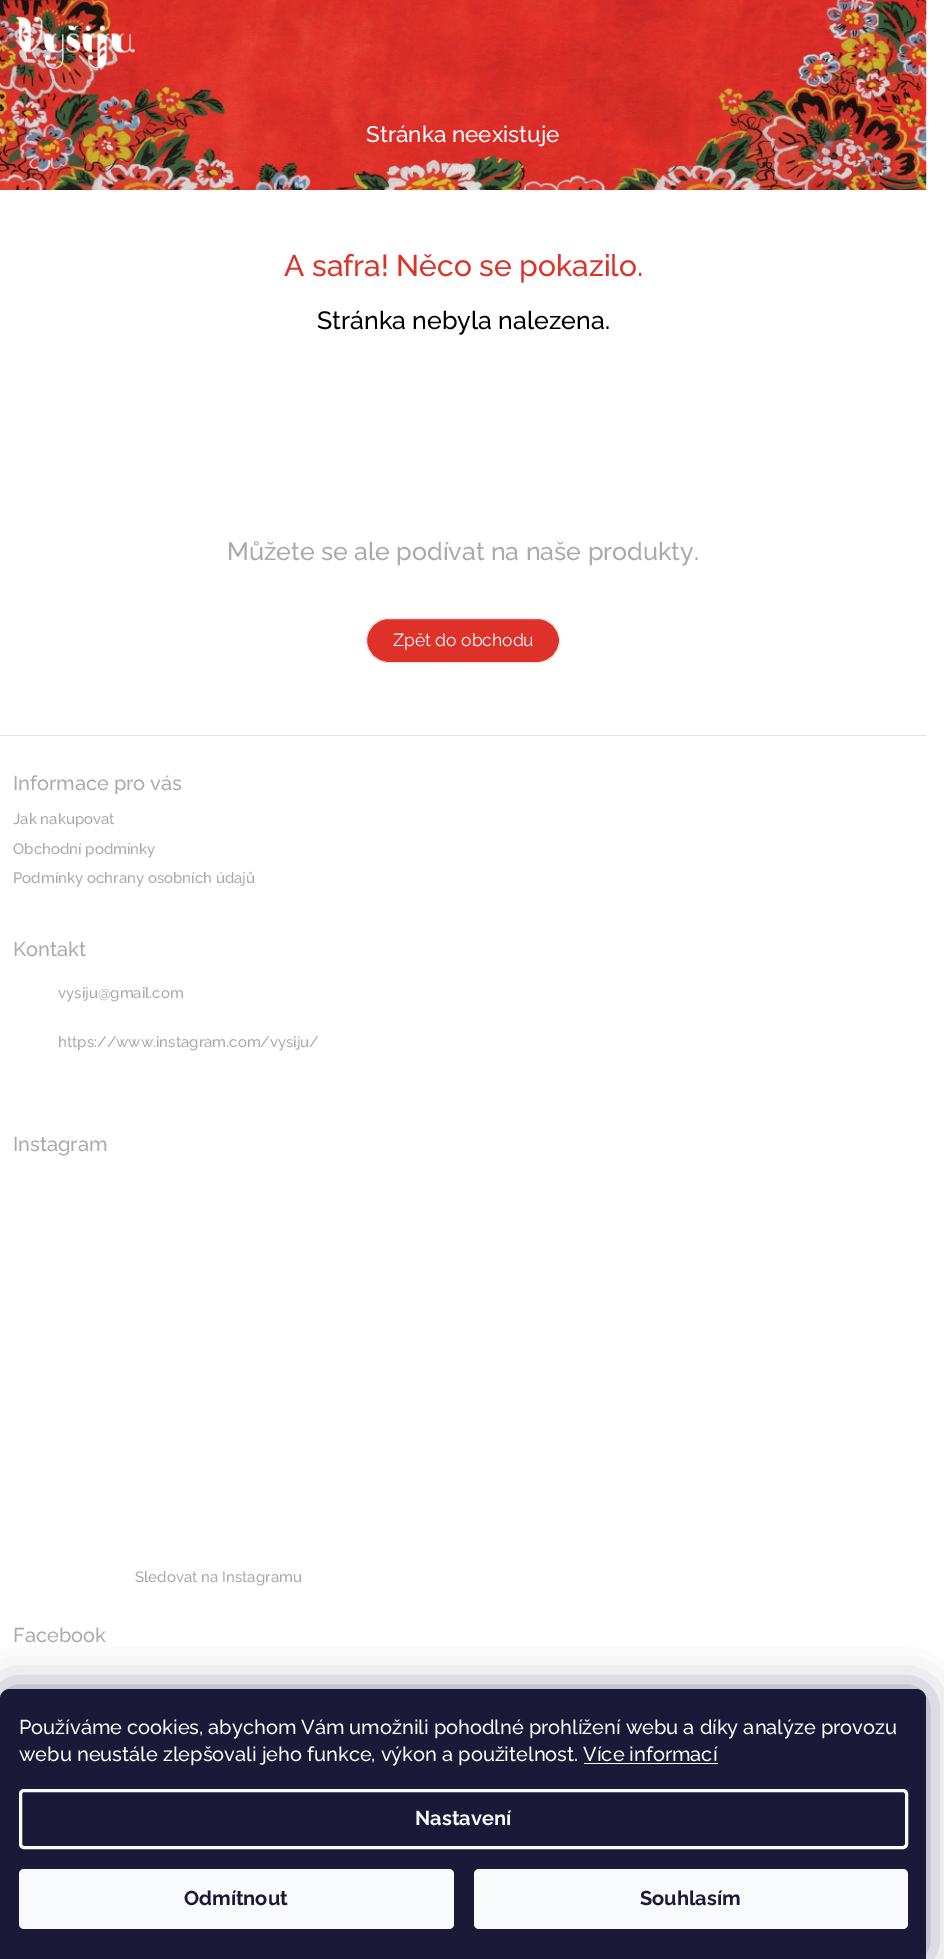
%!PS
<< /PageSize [944 1959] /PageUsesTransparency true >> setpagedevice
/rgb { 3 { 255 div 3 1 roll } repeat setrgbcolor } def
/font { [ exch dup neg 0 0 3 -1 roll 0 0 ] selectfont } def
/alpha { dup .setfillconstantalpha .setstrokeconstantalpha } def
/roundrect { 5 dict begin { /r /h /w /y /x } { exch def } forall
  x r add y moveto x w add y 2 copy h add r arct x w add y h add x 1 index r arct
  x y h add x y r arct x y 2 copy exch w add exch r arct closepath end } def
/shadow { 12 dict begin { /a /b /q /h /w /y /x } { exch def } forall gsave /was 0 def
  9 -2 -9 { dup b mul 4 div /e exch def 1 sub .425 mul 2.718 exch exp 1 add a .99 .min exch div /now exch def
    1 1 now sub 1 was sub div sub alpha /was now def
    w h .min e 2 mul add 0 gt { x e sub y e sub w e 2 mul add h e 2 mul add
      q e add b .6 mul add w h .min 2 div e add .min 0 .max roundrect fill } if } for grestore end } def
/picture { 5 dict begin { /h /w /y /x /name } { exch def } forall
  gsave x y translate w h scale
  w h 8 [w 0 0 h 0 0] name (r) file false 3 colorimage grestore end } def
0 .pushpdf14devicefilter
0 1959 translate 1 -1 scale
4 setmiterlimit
255 255 255 rgb
0 0 944 1959 rectfill
(img/1.rgb) 0 0 927 190 picture
(img/2.rgb) 15 16 121 53 picture
222 49 41 rgb
366.5 618.5 193 44 22 roundrect gsave fill grestore
227 227 227 rgb
stroke
0 735 926 1 rectfill
27 25 57 rgb
0 1689 926 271 10 19 0.5 shadow
26 25 55 rgb
10 1689 moveto 916 1689 lineto 921.5 1689 926 1693.5 926 1699 curveto 926 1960 lineto 0 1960 lineto 0 1699 lineto 0 1693.5 4.5 1689 10 1689 curveto closepath fill
248 250 251 rgb
584 1763 134 1 rectfill
3 setlinewidth
20.5 1790.5 886 57 3.5 roundrect stroke
19 1869 435 60 5 roundrect fill
474 1869 434 60 5 roundrect fill
/Raleway-Medium 22.5 font
255 255 255 rgb
366 142 moveto (Stránka neexistuje) show
/Raleway-Medium 30 font
222 49 41 rgb
284 276 moveto (A safra! Něco se pokazilo.) show
/Raleway-Medium 25 font
0 0 0 rgb
317 329 moveto (Stránka nebyla nalezena.) show
170 170 170 rgb
227 560 moveto (Můžete se ale podívat na naše produkty.) show
/Raleway-Regular 17.5 font
255 255 255 rgb
393 646 moveto (Zpět do obchodu) show
/Raleway-Medium 20 font
170 170 170 rgb
13 790 moveto (Informace pro vás) show
/Raleway-Medium 15 font
[
  [(Jak nakupovat) 13 824]
  [(Obchodní podmínky) 13 854]
  [(Podmínky ochrany osobních údajů) 13 883]
] { aload pop moveto show } forall
/Raleway-Medium 20 font
13 956 moveto (Kontakt) show
/Raleway-Medium 15 font
58 998 moveto (vysiju@gmail.com) show
58 1047 moveto (https://www.instagram.com/vysiju/) show
/Raleway-Medium 20 font
13 1151 moveto (Instagram) show
/Raleway-Medium 15 font
135 1582 moveto (Sledovat na Instagramu) show
/Raleway-Medium 20 font
13 1642 moveto (Facebook) show
248 250 251 rgb
19 1734 moveto (Používáme cookies, abychom Vám umožnili pohodlné prohlížení webu a díky analýze provozu) show
19 1761 moveto (webu neustále zlepšovali jeho funkce, výkon a použitelnost. Více informací) show
/Raleway-Bold 20 font
415 1825 moveto (Nastavení) show
26 25 55 rgb
184 1905 moveto (Odmítnout) show
640 1905 moveto (Souhlasím) show
.poppdf14devicefilter showpage
